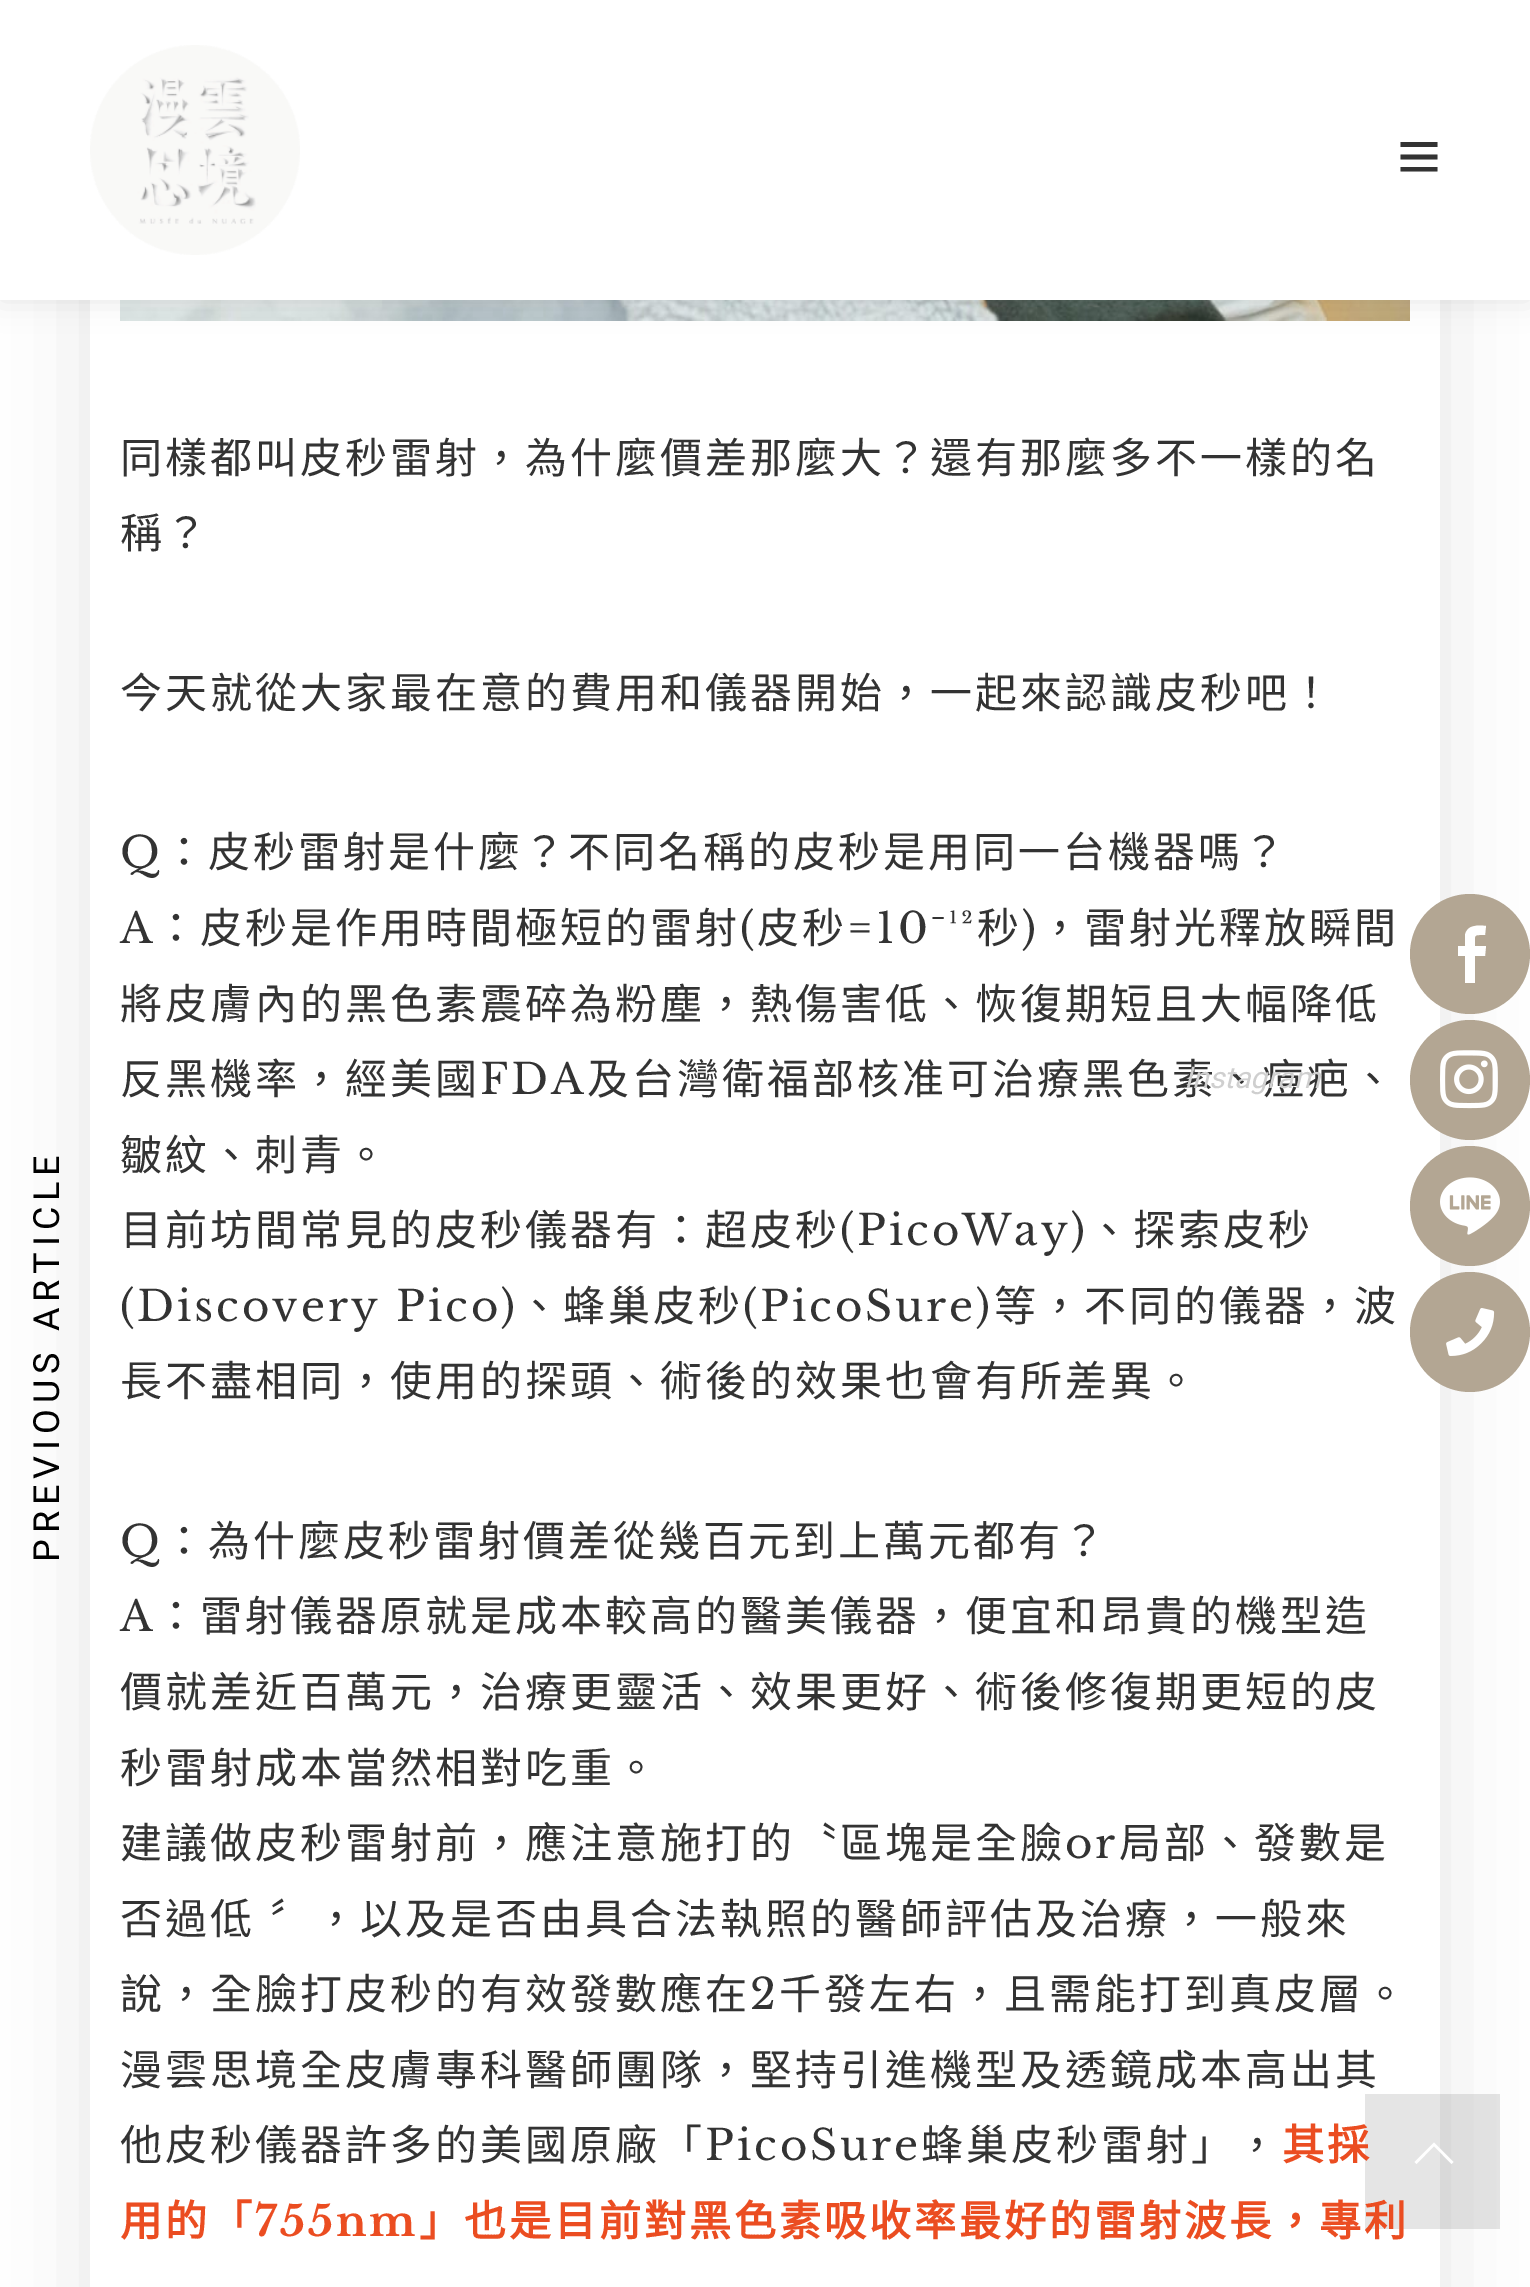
%!PS
<< /PageSize [1530 2287] /PageUsesTransparency true >> setpagedevice
/rgb { 3 { 255 div 3 1 roll } repeat setrgbcolor } def
/font { [ exch dup neg 0 0 3 -1 roll 0 0 ] selectfont } def
/alpha { dup .setfillconstantalpha .setstrokeconstantalpha } def
/circle { newpath 0 360 arc closepath } def
/roundrect { 5 dict begin { /r /h /w /y /x } { exch def } forall
  x r add y moveto x w add y 2 copy h add r arct x w add y h add x 1 index r arct
  x y h add x y r arct x y 2 copy exch w add exch r arct closepath end } def
/shadow { 12 dict begin { /a /b /q /h /w /y /x } { exch def } forall gsave /was 0 def
  9 -2 -9 { dup b mul 4 div /e exch def 1 sub .425 mul 2.718 exch exp 1 add a .99 .min exch div /now exch def
    1 1 now sub 1 was sub div sub alpha /was now def
    w h .min e 2 mul add 0 gt { x e sub y e sub w e 2 mul add h e 2 mul add
      q e add b .6 mul add w h .min 2 div e add .min 0 .max roundrect fill } if } for grestore end } def
/picture { 5 dict begin { /h /w /y /x /name } { exch def } forall
  gsave x y translate w h scale
  w h 8 [w 0 0 h 0 0] name (r) file false 3 colorimage grestore end } def
0 .pushpdf14devicefilter
0 2287 translate 1 -1 scale
4 setmiterlimit
255 255 255 rgb
0 0 1530 2287 rectfill
gsave
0 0 moveto 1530 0 lineto 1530 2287 lineto 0 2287 lineto closepath 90 -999 moveto 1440 -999 lineto 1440 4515 lineto 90 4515 lineto closepath eoclip newpath
1 1 1 rgb
90 -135 1350 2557 0 45 0.1 shadow
grestore
(img/2.rgb) 120 300 1290 21 picture
1 1 1 rgb
0 0 1530 300 0 15 0.1 shadow
255 255 255 rgb
0 0 1530 300 rectfill
(img/1.rgb) 90 45 210 210 picture
51 51 51 rgb
1437.5 142 moveto 1437.5 147 lineto 1400.5 147 lineto 1400.5 142 lineto closepath 1400.5 159.5 moveto 1437.5 159.5 lineto 1437.5 154.5 lineto 1400.5 154.5 lineto closepath 1400.5 171.5 moveto 1437.5 171.5 lineto 1437.5 167 lineto 1400.5 167 lineto closepath fill
0.1 alpha
0 0 0 rgb
1365 2094 135 135 rectfill
1 alpha
255 255 255 rgb
1453.5 2162 moveto 1451.5 2164 lineto 1434 2146 lineto 1416.5 2164 lineto 1414.5 2162 lineto 1434 2142.5 lineto closepath fill
179 166 147 rgb
1470 954 60 circle fill
255 255 255 rgb
1475 946 moveto 1486 946 lineto 1485 956 lineto 1475 956 lineto 1475 983 lineto 1465 983 lineto 1465 956 lineto 1458 956 lineto 1458 946 lineto 1465 946 lineto 1465 935 lineto 1467 925 1477 925 1486 926 curveto 1485 935 lineto 1473 935 1475 934 1475 946 curveto closepath fill
179 166 147 rgb
1470 1080 60 circle fill
(img/3.rgb) 1440 1050 58 59 picture
1470 1206 60 circle fill
(img/4.rgb) 1440 1177 60 58 picture
1470 1332 60 circle fill
(img/5.rgb) 1446 1308 49 48 picture
/Heebo-Regular 36 font
0 0 0 rgb
gsave 59 1562 translate -90 rotate 0 0 moveto 6 0 (PREVIOUS ARTICLE) ashow grestore
/NotoSansCJKTC-Regular 42 font
51 51 51 rgb
120 473 moveto 3 0 (同樣都叫皮秒雷射，為什麼價差那麼大？還有那麼多不一樣的名) ashow
120 548 moveto 3 0 (稱？) ashow
120 708 moveto 3 0 (今天就從大家最在意的費用和儀器開始，一起來認識皮秒吧！) ashow
/LibreBaskerville-Regular 42 font
120 867 moveto 3 0 (Q) ashow
/NotoSansCJKTC-Regular 42 font
163 867 moveto 3 0 (：皮秒雷射是什麼？不同名稱的皮秒是用同一台機器嗎？) ashow
/LibreBaskerville-Regular 42 font
120 943 moveto 3 0 (A) ashow
/NotoSansCJKTC-Regular 42 font
155 943 moveto 3 0 (：皮秒是作用時間極短的雷射) ashow
/LibreBaskerville-Regular 42 font
740 943 moveto 3 0 (\() ashow
/NotoSansCJKTC-Regular 42 font
757 943 moveto 3 0 (皮秒) ashow
/LibreBaskerville-Regular 42 font
847 943 moveto 3 0 (=10) ashow
/NotoSans-Regular 42 font
931 943 moveto 3 0 (⁻) ashow
/LibreBaskerville-Regular 42 font
948 943 moveto 3 0 (¹²) ashow
/NotoSansCJKTC-Regular 42 font
977 943 moveto 3 0 (秒) ashow
/LibreBaskerville-Regular 42 font
1022 943 moveto 3 0 (\)) ashow
/NotoSansCJKTC-Regular 42 font
1039 943 moveto 3 0 (，雷射光釋放瞬間) ashow
120 1019 moveto 3 0 (將皮膚內的黑色素震碎為粉塵，熱傷害低、恢復期短且大幅降低) ashow
120 1094 moveto 3 0 (反黑機率，經美國) ashow
/LibreBaskerville-Regular 42 font
480 1094 moveto 3 0 (FDA) ashow
/NotoSansCJKTC-Regular 42 font
587 1094 moveto 3 0 (及台灣衛福部核准可治療黑色素、痘疤、) ashow
120 1170 moveto 3 0 (皺紋、刺青。) ashow
120 1245 moveto 3 0 (目前坊間常見的皮秒儀器有：超皮秒) ashow
/LibreBaskerville-Regular 42 font
840 1245 moveto 3 0 (\(PicoWay\)) ashow
/NotoSansCJKTC-Regular 42 font
1088 1245 moveto 3 0 (、探索皮秒) ashow
/LibreBaskerville-Regular 42 font
120 1321 moveto 3 0 (\(Discovery Pico\)) ashow
/NotoSansCJKTC-Regular 42 font
518 1321 moveto 3 0 (、蜂巢皮秒) ashow
/LibreBaskerville-Regular 42 font
743 1321 moveto 3 0 (\(PicoSure\)) ashow
/NotoSansCJKTC-Regular 42 font
994 1321 moveto 3 0 (等，不同的儀器，波) ashow
120 1396 moveto 3 0 (長不盡相同，使用的探頭、術後的效果也會有所差異。) ashow
/LibreBaskerville-Regular 42 font
120 1556 moveto 3 0 (Q) ashow
/NotoSansCJKTC-Regular 42 font
163 1556 moveto 3 0 (：為什麼皮秒雷射價差從幾百元到上萬元都有？) ashow
/LibreBaskerville-Regular 42 font
120 1631 moveto 3 0 (A) ashow
/NotoSansCJKTC-Regular 42 font
155 1631 moveto 3 0 (：雷射儀器原就是成本較高的醫美儀器，便宜和昂貴的機型造) ashow
120 1707 moveto 3 0 (價就差近百萬元，治療更靈活、效果更好、術後修復期更短的皮) ashow
120 1783 moveto 3 0 (秒雷射成本當然相對吃重。) ashow
120 1858 moveto 3 0 (建議做皮秒雷射前，應注意施打的〝區塊是全臉) ashow
/LibreBaskerville-Regular 42 font
1065 1858 moveto 3 0 (or) ashow
/NotoSansCJKTC-Regular 42 font
1119 1858 moveto 3 0 (局部、發數是) ashow
120 1934 moveto 3 0 32 3 0 (否過低 〞，以及是否由具合法執照的醫師評估及治療，一般來) awidthshow
120 2009 moveto 3 0 (說，全臉打皮秒的有效發數應在) ashow
/LibreBaskerville-Regular 42 font
750 2009 moveto 3 0 (2) ashow
/NotoSansCJKTC-Regular 42 font
779 2009 moveto 3 0 (千發左右，且需能打到真皮層。) ashow
120 2085 moveto 3 0 (漫雲思境全皮膚專科醫師團隊，堅持引進機型及透鏡成本高出其) ashow
120 2160 moveto 3 0 (他皮秒儀器許多的美國原廠「) ashow
/LibreBaskerville-Regular 42 font
705 2160 moveto 3 0 (PicoSure) ashow
/NotoSansCJKTC-Regular 42 font
921 2160 moveto 3 0 (蜂巢皮秒雷射」，) ashow
/NotoSansCJKTC-Bold 42 font
235 77 33 rgb
1282 2160 moveto 3 0 (其採) ashow
120 2236 moveto 3 0 (用的「) ashow
/LibreBaskerville-Bold 42 font
255 2236 moveto 3 0 (755nm) ashow
/NotoSansCJKTC-Bold 42 font
419 2236 moveto 3 0 (」也是目前對黑色素吸收率最好的雷射波長，專利) ashow
/Heebo-Italic 30 font
207 207 207 rgb
1184 1088 moveto (Instagram) show
.poppdf14devicefilter showpage
